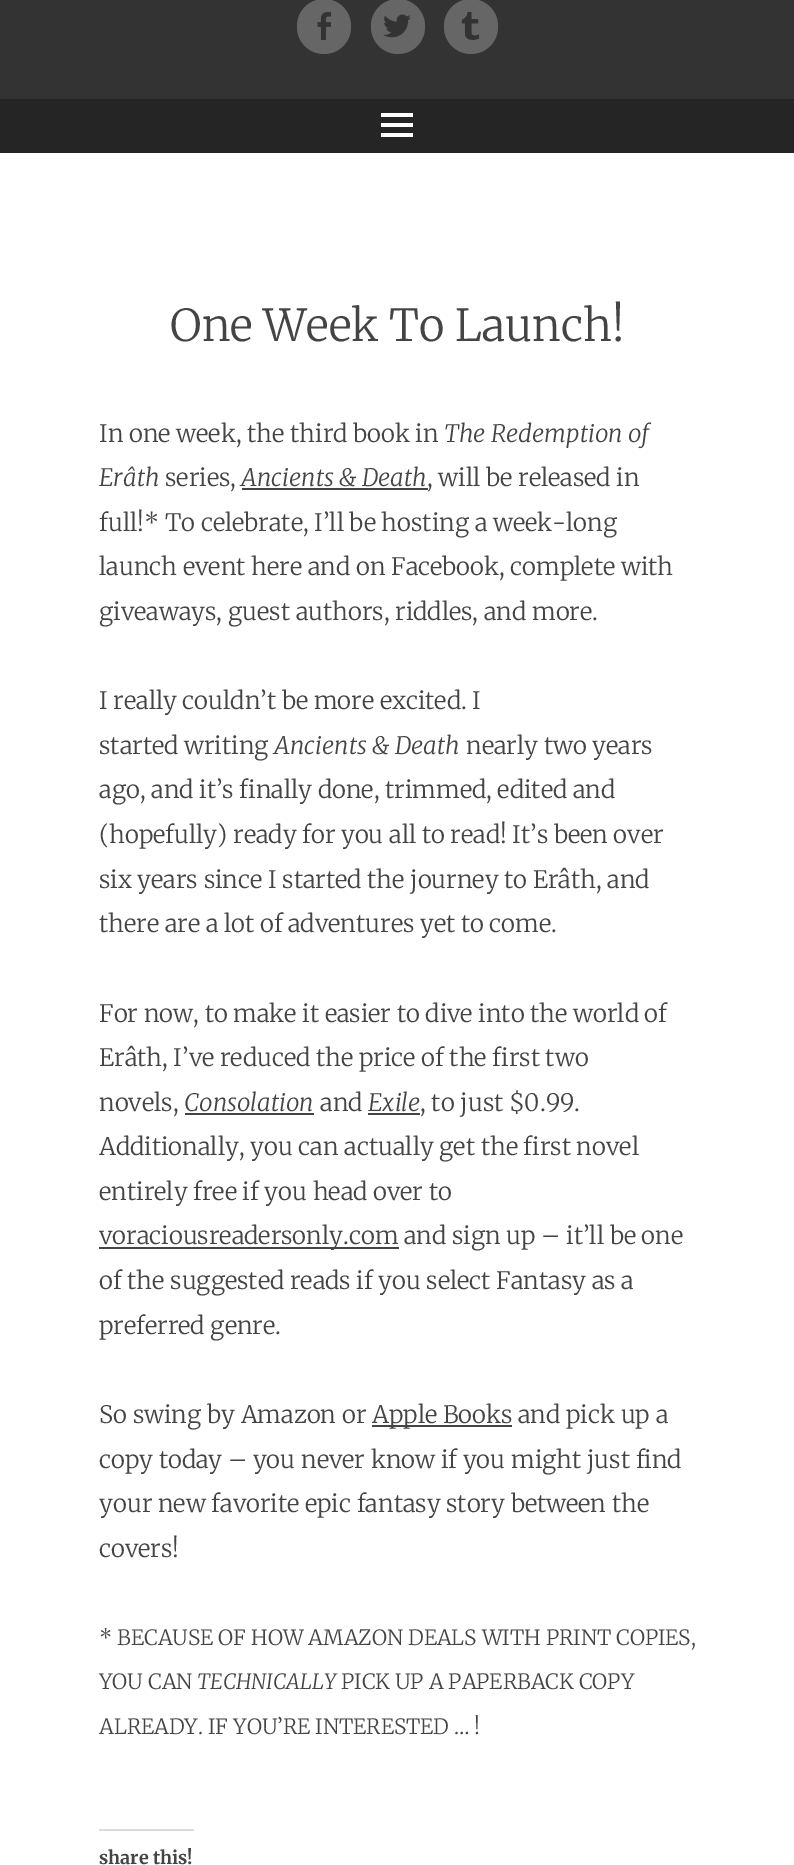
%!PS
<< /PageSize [794 1865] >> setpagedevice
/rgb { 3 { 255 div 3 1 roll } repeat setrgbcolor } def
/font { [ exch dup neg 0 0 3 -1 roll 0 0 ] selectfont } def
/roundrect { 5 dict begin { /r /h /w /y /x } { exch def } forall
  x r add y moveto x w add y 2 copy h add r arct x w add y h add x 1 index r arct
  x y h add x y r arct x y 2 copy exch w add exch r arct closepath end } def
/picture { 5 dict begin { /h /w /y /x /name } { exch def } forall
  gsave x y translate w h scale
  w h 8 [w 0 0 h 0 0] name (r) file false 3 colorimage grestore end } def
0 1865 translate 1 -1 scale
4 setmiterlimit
255 255 255 rgb
0 0 794 1865 rectfill
51 51 51 rgb
0 0 794 99 rectfill
102 102 102 rgb
297 -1 54 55 27 roundrect fill
(img/1.rgb) 317 12 14 28 picture
371 -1 54 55 27 roundrect fill
(img/2.rgb) 383 14 28 24 picture
444 -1 54 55 27 roundrect fill
(img/3.rgb) 461 12 19 28 picture
37 37 37 rgb
0 99 794 54 rectfill
(img/4.rgb) 381 113 32 24 picture
[
  [242 488 186 2 68 68 68]
  [185 1113 129 2 68 68 68]
  [368 1113 52 2 68 68 68]
  [99 1247 300 2 68 68 68]
  [372 1425 140 2 68 68 68]
  [99 1829 95 2 220 220 222]
] { aload pop rgb rectfill } forall
/Merriweather-Light 44 font
68 68 68 rgb
170 341 moveto (One Week To Launch!) show
/Merriweather-Light 24 font
99 442 moveto (In one week, the third book in) show
/Merriweather-LightItalic 24 font
444 442 moveto (The Redemption of) show
99 486 moveto (Erâth) show
/Merriweather-Light 24 font
165 486 moveto (series,) show
/Merriweather-LightItalic 24 font
241 486 moveto (Ancients & Death) show
/Merriweather-Light 24 font
[
  [(, will be released in) 427 486]
  [(full!* To celebrate, I’ll be hosting a week-long) 99 531]
  [(launch event here and on Facebook, complete with) 99 575]
  [(giveaways, guest authors, riddles, and more.) 99 620]
  [(I really couldn’t be more excited. I) 99 709]
  [(started writing) 99 754]
] { aload pop moveto show } forall
/Merriweather-LightItalic 24 font
274 754 moveto (Ancients & Death) show
/Merriweather-Light 24 font
[
  [(nearly two years) 466 754]
  [(ago, and it’s finally done, trimmed, edited and) 99 798]
  [(\(hopefully\) ready for you all to read! It’s been over) 99 843]
  [(six years since I started the journey to Erâth, and) 99 888]
  [(there are a lot of adventures yet to come.) 99 932]
  [(For now, to make it easier to dive into the world of) 99 1022]
  [(Erâth, I’ve reduced the price of the first two) 99 1066]
  [(novels,) 99 1111]
] { aload pop moveto show } forall
/Merriweather-LightItalic 24 font
184 1111 moveto (Consolation) show
/Merriweather-Light 24 font
320 1111 moveto (and) show
/Merriweather-LightItalic 24 font
368 1111 moveto (Exile) show
/Merriweather-Light 24 font
[
  [(, to just $0.99.) 420 1111]
  [(Additionally, you can actually get the first novel) 99 1155]
  [(entirely free if you head over to) 99 1200]
  [(voraciousreadersonly.com and sign up – it’ll be one) 99 1244]
  [(of the suggested reads if you select Fantasy as a) 99 1289]
  [(preferred genre.) 99 1334]
  [(So swing by Amazon or) 99 1423]
  [(Apple Books and pick up a) 372 1423]
  [(copy today – you never know if you might just find) 99 1468]
  [(your new favorite epic fantasy story between the) 99 1512]
  [(covers!) 99 1557]
] { aload pop moveto show } forall
/Merriweather-Light 21 font
99 1645 moveto (* BECAUSE OF HOW AMAZON DEALS WITH PRINT COPIES,) show
99 1689 moveto (YOU CAN) show
/Merriweather-LightItalic 21 font
197 1689 moveto (TECHNICALLY) show
/Merriweather-Light 21 font
341 1689 moveto (PICK UP A PAPERBACK COPY) show
99 1734 moveto (ALREADY. IF YOU’RE INTERESTED … !) show
/Merriweather-Bold 18 font
99 1864 moveto (share this!) show
showpage
